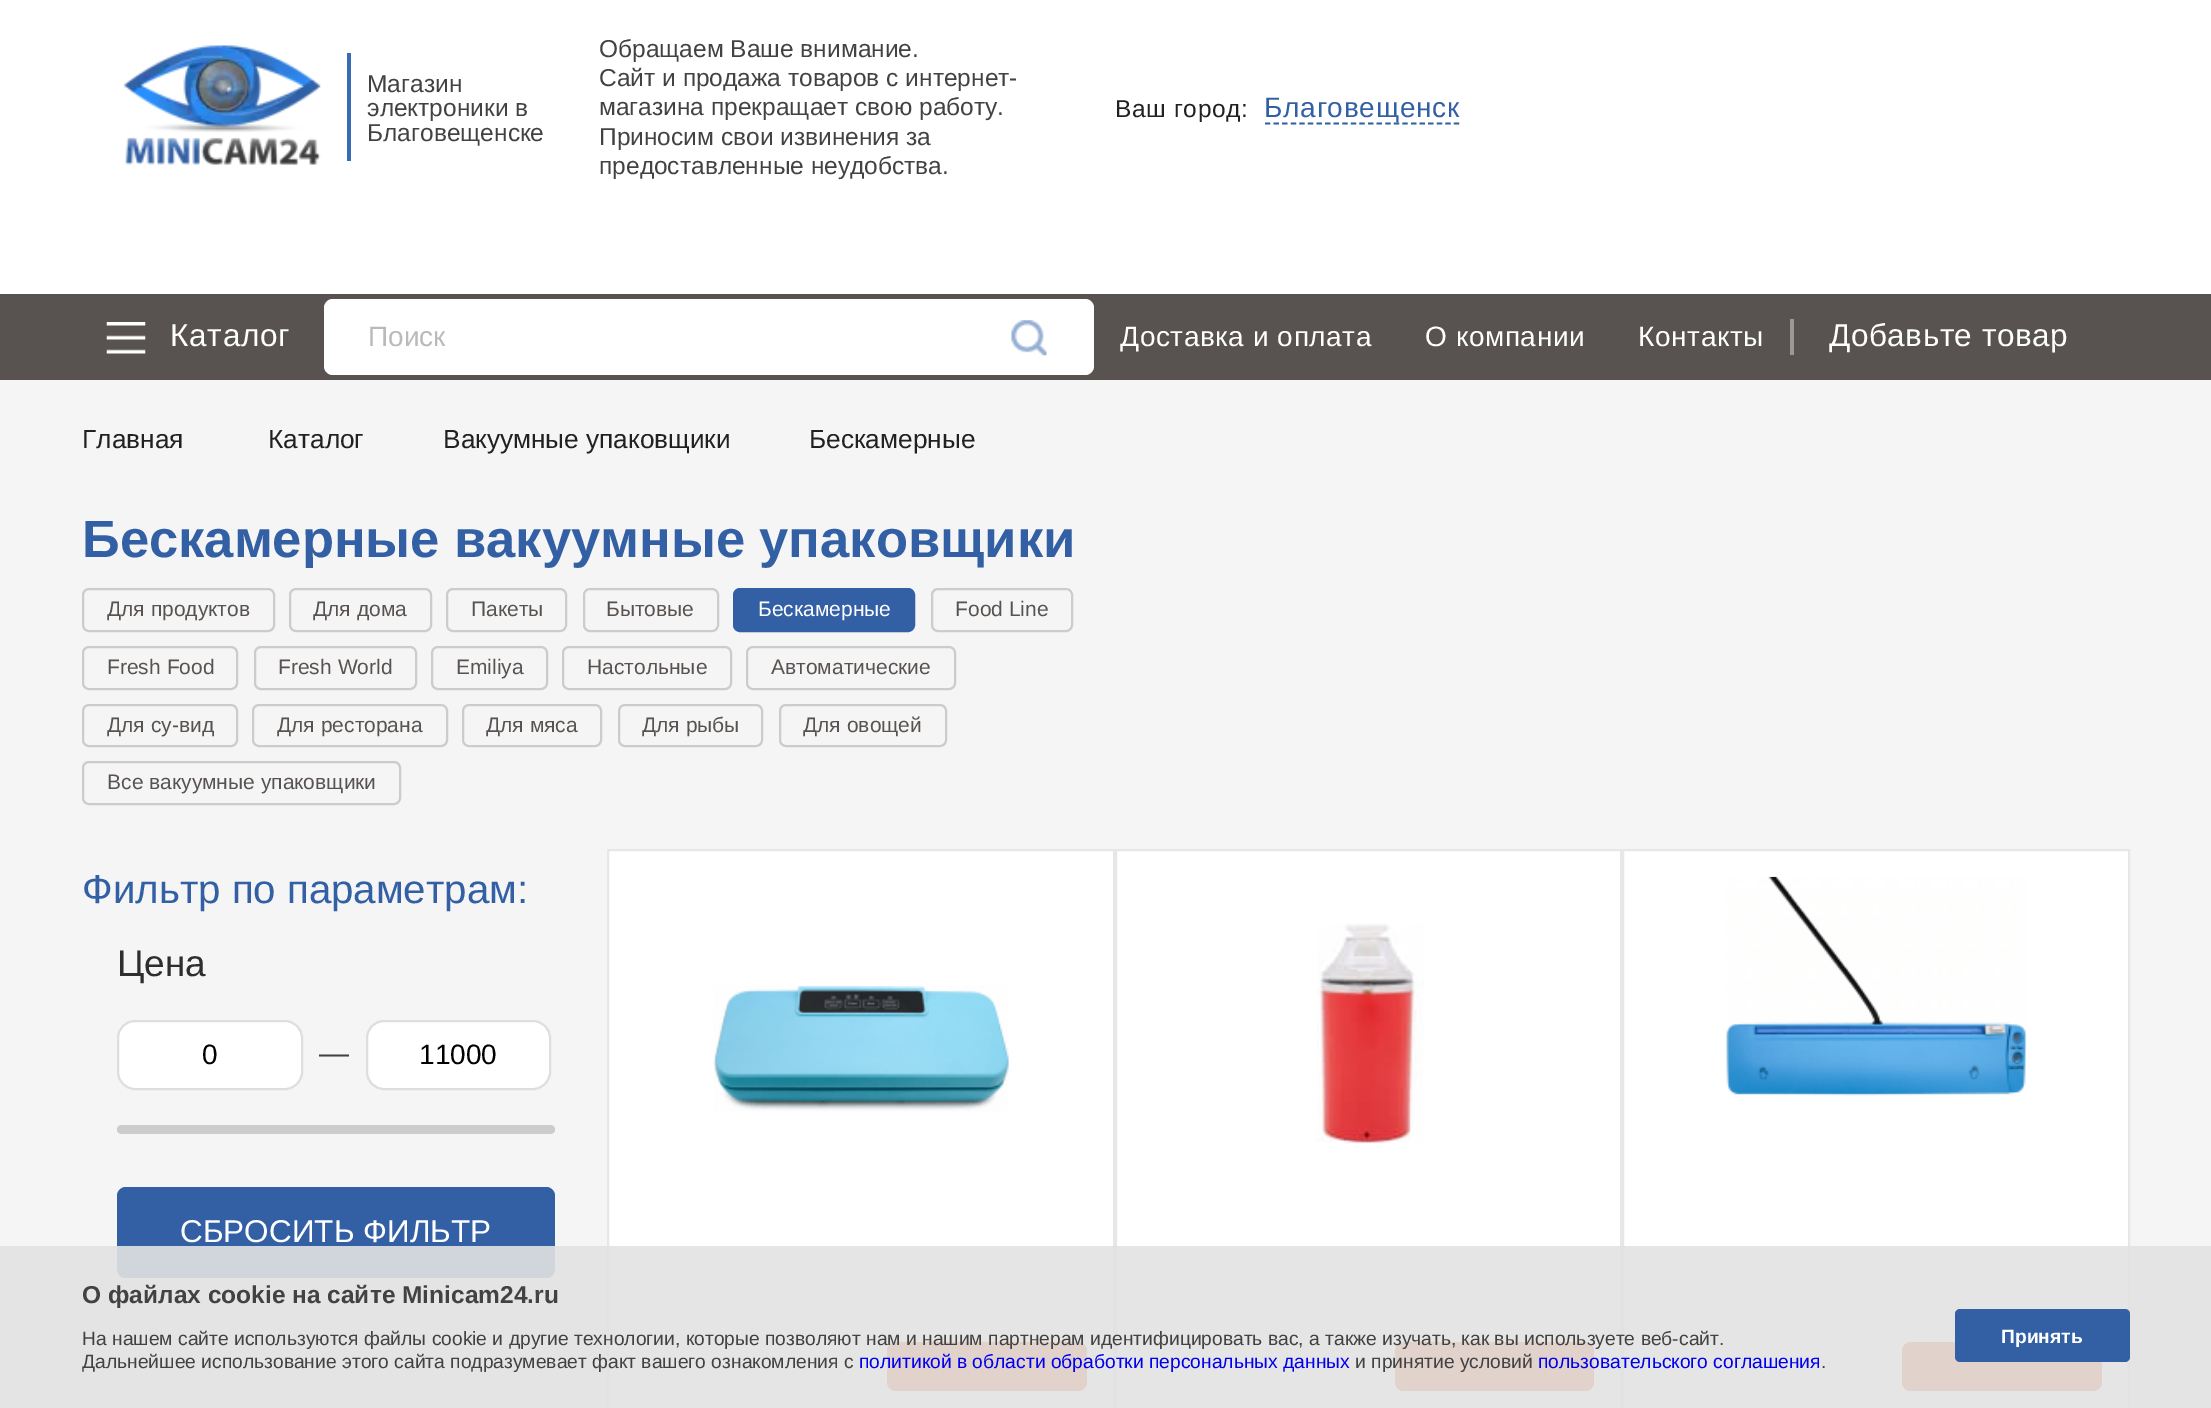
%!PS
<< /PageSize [2211 1408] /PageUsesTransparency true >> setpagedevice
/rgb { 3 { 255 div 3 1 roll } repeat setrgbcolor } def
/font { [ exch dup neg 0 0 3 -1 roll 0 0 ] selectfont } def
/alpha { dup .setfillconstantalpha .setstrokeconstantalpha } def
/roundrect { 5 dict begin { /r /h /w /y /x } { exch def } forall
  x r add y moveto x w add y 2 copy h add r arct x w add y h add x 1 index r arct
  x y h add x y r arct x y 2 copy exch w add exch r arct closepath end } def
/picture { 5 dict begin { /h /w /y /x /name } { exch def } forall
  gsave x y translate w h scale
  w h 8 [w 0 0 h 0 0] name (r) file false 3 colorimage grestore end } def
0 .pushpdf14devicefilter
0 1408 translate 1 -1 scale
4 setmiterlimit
245 245 245 rgb
0 0 2211 1408 rectfill
255 255 255 rgb
0 0 2211 294 rectfill
(img/1.rgb) 124 45 197 120 picture
57 107 183 rgb
347 53 4 108 rectfill
51 96 164 rgb
1.8 setlinewidth
[5.25 3.34] 0 setdash
1265 123.5 moveto 1459.5 123.5 lineto stroke
88 83 80 rgb
0 294 2211 86 rectfill
(img/2.rgb) 106 322 40 32 picture
255 255 255 rgb
324 299 770 76 9 roundrect fill
(img/3.rgb) 1011 320 36 36 picture
155 152 150 rgb
1790 319 4 36 rectfill
204 204 204 rgb
2 setlinewidth
[] 0 setdash
83 589 191 42 6 roundrect stroke
290 589 141 42 6 roundrect stroke
447 589 119 42 6 roundrect stroke
584 589 134 42 6 roundrect stroke
51 96 164 rgb
734 589 180 42 6 roundrect gsave fill grestore
stroke
204 204 204 rgb
932 589 140 42 6 roundrect stroke
83 647 154 42 6 roundrect stroke
255 647 161 42 6 roundrect stroke
432 647 115 42 6 roundrect stroke
563 647 168 42 6 roundrect stroke
747 647 208 42 6 roundrect stroke
83 705 154 41 6 roundrect stroke
253 705 194 41 6 roundrect stroke
463 705 138 41 6 roundrect stroke
619 705 143 41 6 roundrect stroke
780 705 166 41 6 roundrect stroke
83 762 317 42 6 roundrect stroke
255 255 255 rgb
118 1021 184 68 17 roundrect gsave fill grestore
222 222 222 rgb
stroke
255 255 255 rgb
367 1021 183 68 17 roundrect gsave fill grestore
222 222 222 rgb
stroke
204 204 204 rgb
117 1125 438 9 4.5 roundrect fill
51 96 164 rgb
117 1187 438 91 9 roundrect fill
255 255 255 rgb
608 850 moveto 1114 850 lineto 1114 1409 lineto 608 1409 lineto closepath gsave fill grestore
231 231 231 rgb
stroke
(img/4.rgb) 713 985 296 127 picture
230 62 3 rgb
887 1342 200 49 9 roundrect fill
255 255 255 rgb
1116 850 moveto 1621 850 lineto 1621 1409 lineto 1116 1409 lineto closepath gsave fill grestore
231 231 231 rgb
stroke
(img/5.rgb) 1317 923 107 221 picture
230 62 3 rgb
1395 1342 199 49 9 roundrect fill
255 255 255 rgb
1623 850 moveto 2129 850 lineto 2129 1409 lineto 1623 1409 lineto closepath gsave fill grestore
231 231 231 rgb
stroke
(img/6.rgb) 1726 876 301 220 picture
230 62 3 rgb
1902 1342 200 49 9 roundrect fill
0.9 alpha
226 226 226 rgb
0 1246 2211 162 rectfill
1 alpha
51 96 164 rgb
1955 1309 175 53 5 roundrect fill
/LiberationSans-Regular 24.5 font
66 66 66 rgb
[
  [(Магазин) 367 92]
  [(электроники в) 367 116]
  [(Благовещенске) 367 141]
  [(Обращаем Ваше внимание.) 599 57]
  [(Сайт и продажа товаров с интернет-) 599 86]
  [(магазина прекращает свою работу.) 599 115]
  [(Приносим свои извинения за) 599 145]
  [(предоставленные неудобства.) 599 174]
] { aload pop moveto show } forall
33 33 33 rgb
1115 117 moveto 0.6 0 (Ваш город:) ashow
/LiberationSans-Regular 28 font
51 96 164 rgb
1264 117 moveto 0.75 0 (Благовещенск) ashow
/LiberationSans-Regular 31.5 font
255 255 255 rgb
170 346 moveto 0.75 0 (Каталог) ashow
/LiberationSans-Regular 28 font
186 186 186 rgb
368 346 moveto (Поиск) show
255 255 255 rgb
1120 346 moveto 0.6 0 (Доставка и оплата) ashow
1425 346 moveto 0.6 0 (О компании) ashow
1638 346 moveto 0.6 0 (Контакты) ashow
/LiberationSans-Regular 31.5 font
1829 346 moveto 0.5 0 (Добавьте товар) ashow
/LiberationSans-Regular 26.25 font
33 33 33 rgb
[
  [(Главная) 82 448]
  [(Каталог) 268 448]
  [(Вакуумные упаковщики) 443 448]
  [(Бескамерные) 809 448]
] { aload pop moveto show } forall
/LiberationSans-Bold 52.5 font
51 96 164 rgb
82 557 moveto (Бескамерные вакуумные упаковщики) show
/LiberationSans-Regular 21 font
88 83 80 rgb
[
  [(Для продуктов) 107 616]
  [(Для дома) 313 616]
  [(Пакеты) 471 616]
  [(Бытовые) 606 616]
] { aload pop moveto show } forall
255 255 255 rgb
758 616 moveto (Бескамерные) show
88 83 80 rgb
[
  [(Food Line) 955 616]
  [(Fresh Food) 107 674]
  [(Fresh World) 278 674]
  [(Emiliya) 456 674]
  [(Настольные) 587 674]
  [(Автоматические) 771 674]
  [(Для су-вид) 107 732]
  [(Для ресторана) 277 732]
  [(Для мяса) 486 732]
  [(Для рыбы) 642 732]
  [(Для овощей) 803 732]
  [(Все вакуумные упаковщики) 107 789]
] { aload pop moveto show } forall
/LiberationSans-Regular 40.25 font
51 96 164 rgb
82 903 moveto (Фильтр по параметрам:) show
/LiberationSans-Regular 37 font
46 46 46 rgb
117 976 moveto (Цена) show
/LiberationSans-Regular 28 font
0 0 0 rgb
202 1064 moveto (0) show
/LiberationSans-Regular 30 font
66 66 66 rgb
319 1063 moveto (—) show
/LiberationSans-Regular 28 font
0 0 0 rgb
419 1064 moveto (11000) show
/LiberationSans-Regular 31.5 font
255 255 255 rgb
180 1242 moveto (СБРОСИТЬ ФИЛЬТР) show
/LiberationSans-Bold 24.5 font
66 66 66 rgb
82 1303 moveto (О файлах cookie на сайте Minicam24.ru) show
/LiberationSans-Regular 19.25 font
82 1345 moveto (На нашем сайте используются файлы cookie и другие технологии, которые позволяют нам и нашим партнерам идентифицировать вас, а также изучать, как вы используете веб-сайт.) show
82 1368 moveto (Дальнейшее использование этого сайта подразумевает факт вашего ознакомления с) show
0 0 238 rgb
859 1368 moveto (политикой в области обработки персональных данных) show
66 66 66 rgb
1355 1368 moveto (и принятие условий) show
0 0 238 rgb
1538 1368 moveto (пользовательского соглашения) show
66 66 66 rgb
1821 1368 moveto (.) show
/LiberationSans-Bold 19.25 font
255 255 255 rgb
2001 1343 moveto (Принять) show
.poppdf14devicefilter showpage
